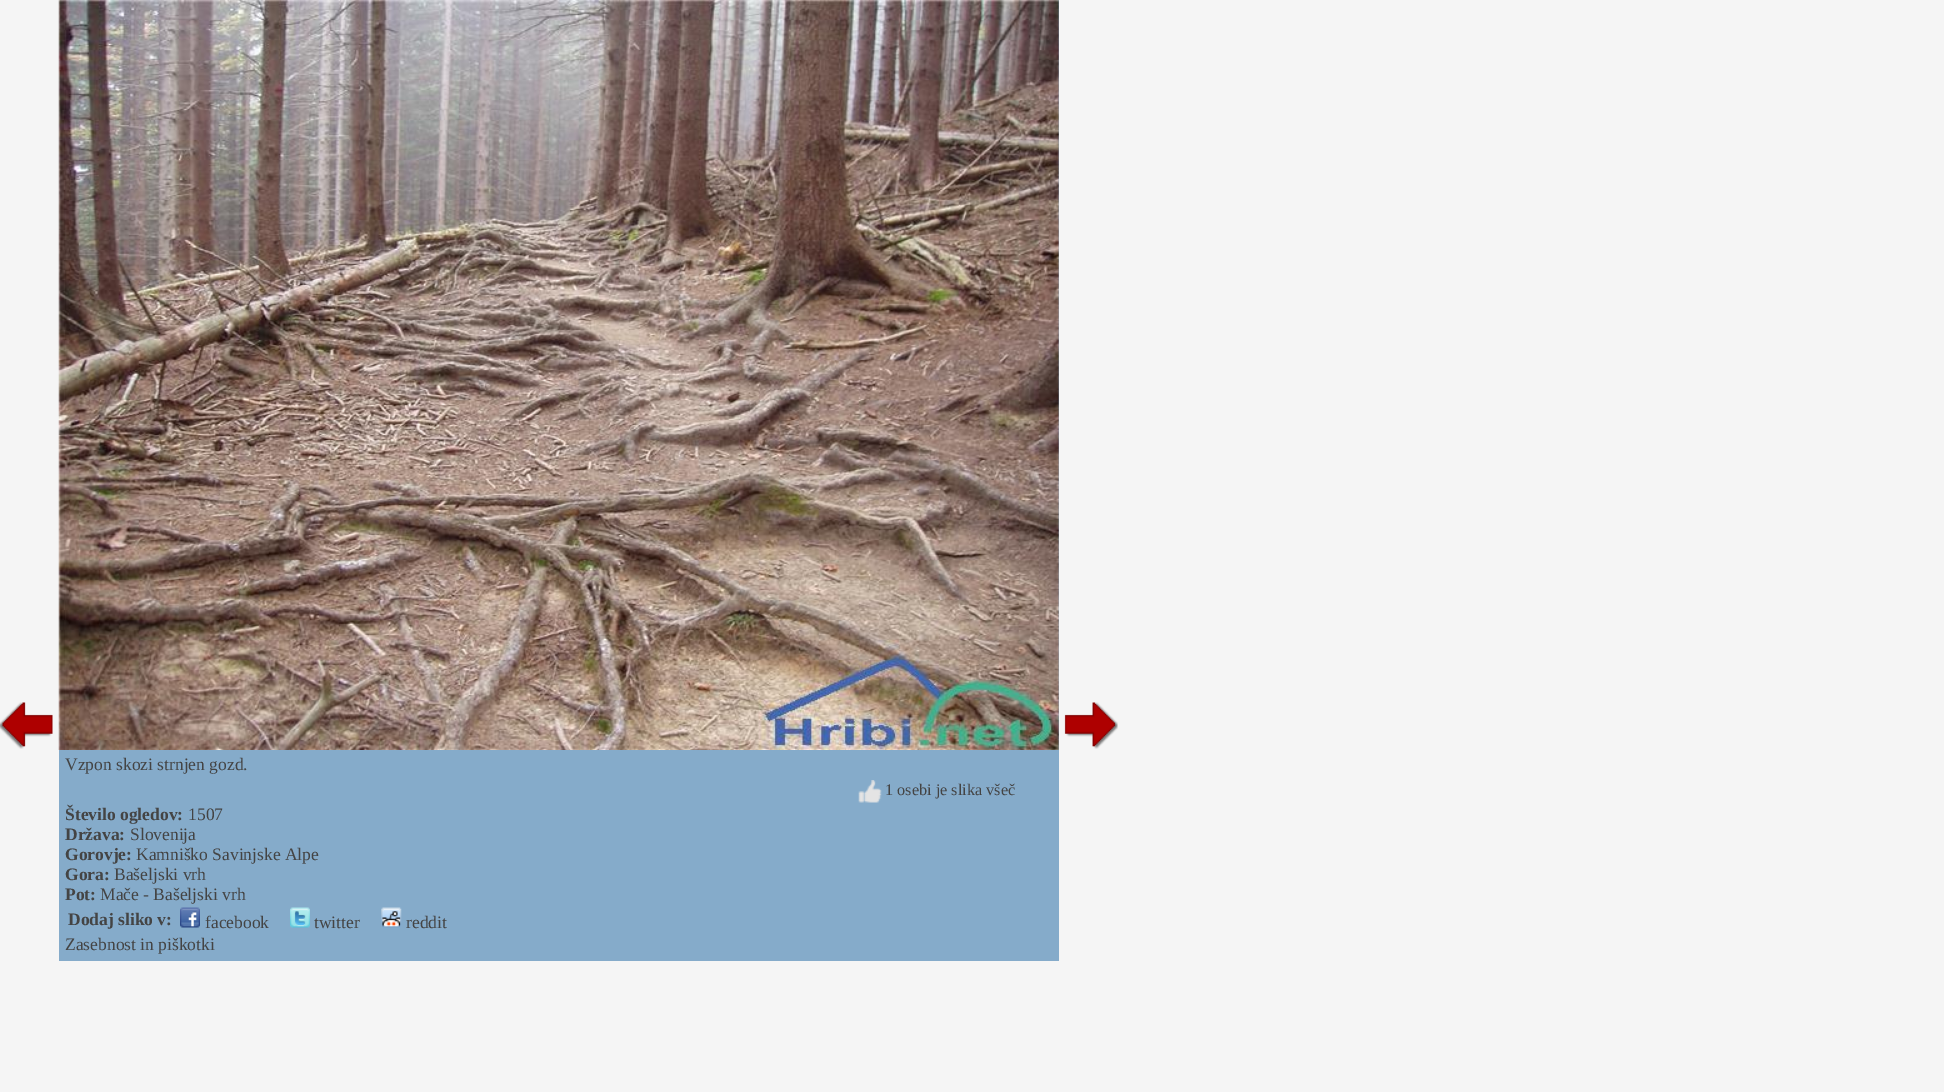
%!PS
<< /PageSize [1944 1092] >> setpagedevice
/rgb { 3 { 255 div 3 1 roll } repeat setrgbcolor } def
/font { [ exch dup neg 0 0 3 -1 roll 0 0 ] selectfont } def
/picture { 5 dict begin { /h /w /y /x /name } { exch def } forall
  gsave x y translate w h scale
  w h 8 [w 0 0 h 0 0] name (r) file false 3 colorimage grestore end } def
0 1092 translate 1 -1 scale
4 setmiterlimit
245 245 245 rgb
0 0 1944 1092 rectfill
(img/1.rgb) 0 702 53 47 picture
(img/2.rgb) 1064 702 54 47 picture
133 171 202 rgb
59 0 1000 961 rectfill
(img/3.rgb) 58 0 1001 750 picture
(img/4.rgb) 858 780 24 23 picture
(img/5.rgb) 180 907 20 21 picture
(img/6.rgb) 290 907 20 21 picture
(img/7.rgb) 381 907 21 21 picture
/LiberationSerif-Regular 17.5 font
68 68 68 rgb
65 770 moveto (Vzpon skozi strnjen gozd.) show
/LiberationSerif-Regular 16.25 font
885 795 moveto (1 osebi je slika všeč) show
/LiberationSerif-Bold 17.5 font
65 820 moveto (Število ogledov:) show
/LiberationSerif-Regular 17.5 font
188 820 moveto (1507) show
/LiberationSerif-Bold 17.5 font
65 840 moveto (Država:) show
/LiberationSerif-Regular 17.5 font
130 840 moveto (Slovenija) show
/LiberationSerif-Bold 17.5 font
65 860 moveto (Gorovje:) show
/LiberationSerif-Regular 17.5 font
136 860 moveto (Kamniško Savinjske Alpe) show
/LiberationSerif-Bold 17.5 font
65 880 moveto (Gora:) show
/LiberationSerif-Regular 17.5 font
114 880 moveto (Bašeljski vrh) show
/LiberationSerif-Bold 17.5 font
65 900 moveto (Pot:) show
/LiberationSerif-Regular 17.5 font
100 900 moveto (Mače - Bašeljski vrh) show
/LiberationSerif-Bold 17.5 font
68 925 moveto (Dodaj sliko v:) show
/LiberationSerif-Regular 17.5 font
[
  [(facebook) 205 928]
  [(twitter) 314 928]
  [(reddit) 406 928]
  [(Zasebnost in piškotki) 65 950]
] { aload pop moveto show } forall
showpage
